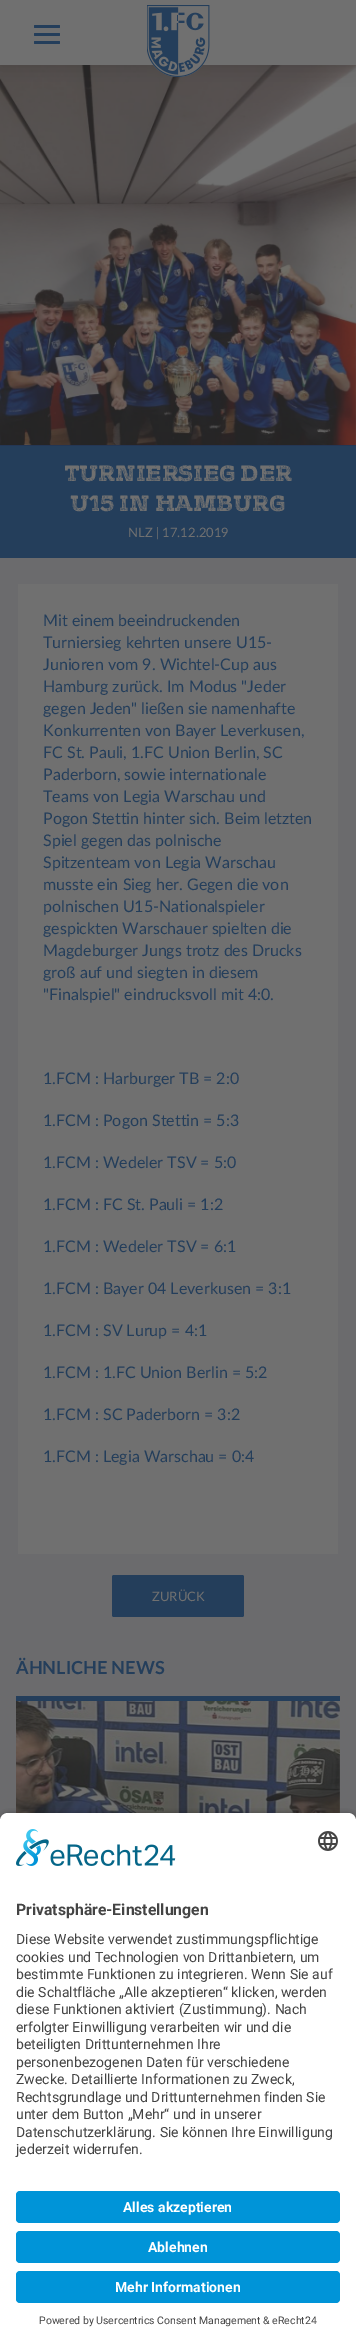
%!PS
<< /PageSize [356 2343] /PageUsesTransparency true >> setpagedevice
/rgb { 3 { 255 div 3 1 roll } repeat setrgbcolor } def
/font { [ exch dup neg 0 0 3 -1 roll 0 0 ] selectfont } def
/alpha { dup .setfillconstantalpha .setstrokeconstantalpha } def
/roundrect { 5 dict begin { /r /h /w /y /x } { exch def } forall
  x r add y moveto x w add y 2 copy h add r arct x w add y h add x 1 index r arct
  x y h add x y r arct x y 2 copy exch w add exch r arct closepath end } def
/shadow { 12 dict begin { /a /b /q /h /w /y /x } { exch def } forall gsave /was 0 def
  9 -2 -9 { dup b mul 4 div /e exch def 1 sub .425 mul 2.718 exch exp 1 add a .99 .min exch div /now exch def
    1 1 now sub 1 was sub div sub alpha /was now def
    w h .min e 2 mul add 0 gt { x e sub y e sub w e 2 mul add h e 2 mul add
      q e add b .6 mul add w h .min 2 div e add .min 0 .max roundrect fill } if } for grestore end } def
/picture { 5 dict begin { /h /w /y /x /name } { exch def } forall
  gsave x y translate w h scale
  w h 8 [w 0 0 h 0 0] name (r) file false 3 colorimage grestore end } def
0 .pushpdf14devicefilter
0 2343 translate 1 -1 scale
4 setmiterlimit
107 107 109 rgb
0 0 356 2343 rectfill
(img/2.rgb) 0 65 356 380 picture
36 36 36 rgb
0 0 356 65 0 10 0.25 shadow
112 112 112 rgb
0 0 356 65 rectfill
36 62 91 rgb
34 25 26 3 1 roundrect fill
34 33 26 3 1 roundrect fill
34 41 26 3 1 roundrect fill
(img/1.rgb) 147 5 63 72 picture
[
  [0 446 356 112 36 62 91]
  [0 445 356 1 36 54 84]
  [18 584 320 970 112 112 112]
] { aload pop rgb rectfill } forall
36 62 91 rgb
112 1575 132 42 2 roundrect fill
16 1696 324 5 rectfill
(img/3.rgb) 16 1701 324 112 picture
0 0 0 rgb
0 1816 356 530 8 3.5 0.8 shadow
255 255 255 rgb
8 1813 moveto 348 1813 lineto 352.5 1813 356 1816.5 356 1821 curveto 356 2179 lineto 0 2179 lineto 0 1821 lineto 0 1816.5 3.5 1813 8 1813 curveto closepath fill
(img/4.rgb) 16 1829 160 37 picture
(img/5.rgb) 318 1831 20 20 picture
0 2179 356 164 rectfill
0 148 216 rgb
16 2191 324 32 4 roundrect fill
16 2231 324 32 4 roundrect fill
16 2271 324 32 4 roundrect fill
/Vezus-Regular 20 font
112 112 112 rgb
65 481 moveto (TURNIERSIEG DER) show
70 511 moveto (U15 IN HAMBURG) show
/Lato-Regular 13 font
128 537 moveto (NLZ | 17.12.2019) show
/Lato-Regular 16 font
36 62 91 rgb
[
  [(Mit einem beeindruckenden) 43 626]
  [(Turniersieg kehrten unsere U15-) 43 648]
  [(Junioren vom 9. Wichtel-Cup aus) 43 670]
  [(Hamburg zurück. Im Modus "Jeder) 43 692]
  [(gegen Jeden" ließen sie namenhafte) 43 714]
  [(Konkurrenten von Bayer Leverkusen,) 43 736]
  [(FC St. Pauli, 1.FC Union Berlin, SC) 43 758]
  [(Paderborn, sowie internationale) 43 780]
  [(Teams von Legia Warschau und) 43 802]
  [(Pogon Stettin hinter sich. Beim letzten) 43 824]
  [(Spiel gegen das polnische) 43 846]
  [(Spitzenteam von Legia Warschau) 43 868]
  [(musste ein Sieg her. Gegen die von) 43 890]
  [(polnischen U15-Nationalspieler) 43 912]
  [(gespickten Warschauer spielten die) 43 934]
  [(Magdeburger Jungs trotz des Drucks) 43 956]
  [(groß auf und siegten in diesem) 43 978]
  [("Finalspiel" eindrucksvoll mit 4:0.) 43 1000]
  [(1.FCM : Harburger TB = 2:0) 43 1084]
  [(1.FCM : Pogon Stettin = 5:3) 43 1126]
  [(1.FCM : Wedeler TSV = 5:0) 43 1168]
  [(1.FCM : FC St. Pauli = 1:2) 43 1210]
  [(1.FCM : Wedeler TSV = 6:1) 43 1252]
  [(1.FCM : Bayer 04 Leverkusen = 3:1) 43 1294]
  [(1.FCM : SV Lurup = 4:1) 43 1336]
  [(1.FCM : 1.FC Union Berlin = 5:2) 43 1378]
  [(1.FCM : SC Paderborn = 3:2) 43 1420]
  [(1.FCM : Legia Warschau = 0:4) 43 1462]
] { aload pop moveto show } forall
/Lato-Regular 13 font
112 112 112 rgb
152 1601 moveto (ZURÜCK) show
/Lato-Bold 18 font
36 62 91 rgb
16 1674 moveto (ÄHNLICHE NEWS) show
/Roboto-Bold 15.75 font
68 68 68 rgb
16 1915 moveto (Privatsphäre-Einstellungen) show
/Roboto-Regular 14 font
[
  [(Diese Website verwendet zustimmungspflichtige) 16 1944]
  [(cookies und Technologien von Drittanbietern, um) 16 1962]
  [(bestimmte Funktionen zu integrieren. Wenn Sie auf) 16 1979]
  [(die Schaltfläche „Alle akzeptieren“ klicken, werden) 16 1997]
  [(diese Funktionen aktiviert \(Zustimmung\). Nach) 16 2014]
  [(erfolgter Einwilligung verarbeiten wir und die) 16 2032]
  [(beteiligten Drittunternehmen Ihre) 16 2049]
  [(personenbezogenen Daten für verschiedene) 16 2067]
  [(Zwecke. Detaillierte Informationen zu Zweck,) 16 2084]
  [(Rechtsgrundlage und Drittunternehmen finden Sie) 16 2102]
  [(unter dem Button „Mehr“ und in unserer) 16 2119]
  [(Datenschutzerklärung. Sie können Ihre Einwilligung) 16 2137]
  [(jederzeit widerrufen.) 16 2154]
] { aload pop moveto show } forall
/Roboto-Bold 14 font
255 255 255 rgb
[
  [(Alles akzeptieren) 123 2212]
  [(Ablehnen) 148 2252]
  [(Mehr Informationen) 115 2292]
] { aload pop moveto show } forall
/Roboto-Regular 10.5 font
68 68 68 rgb
39 2324 moveto (Powered by Usercentrics Consent Management & eRecht24) show
.poppdf14devicefilter showpage
